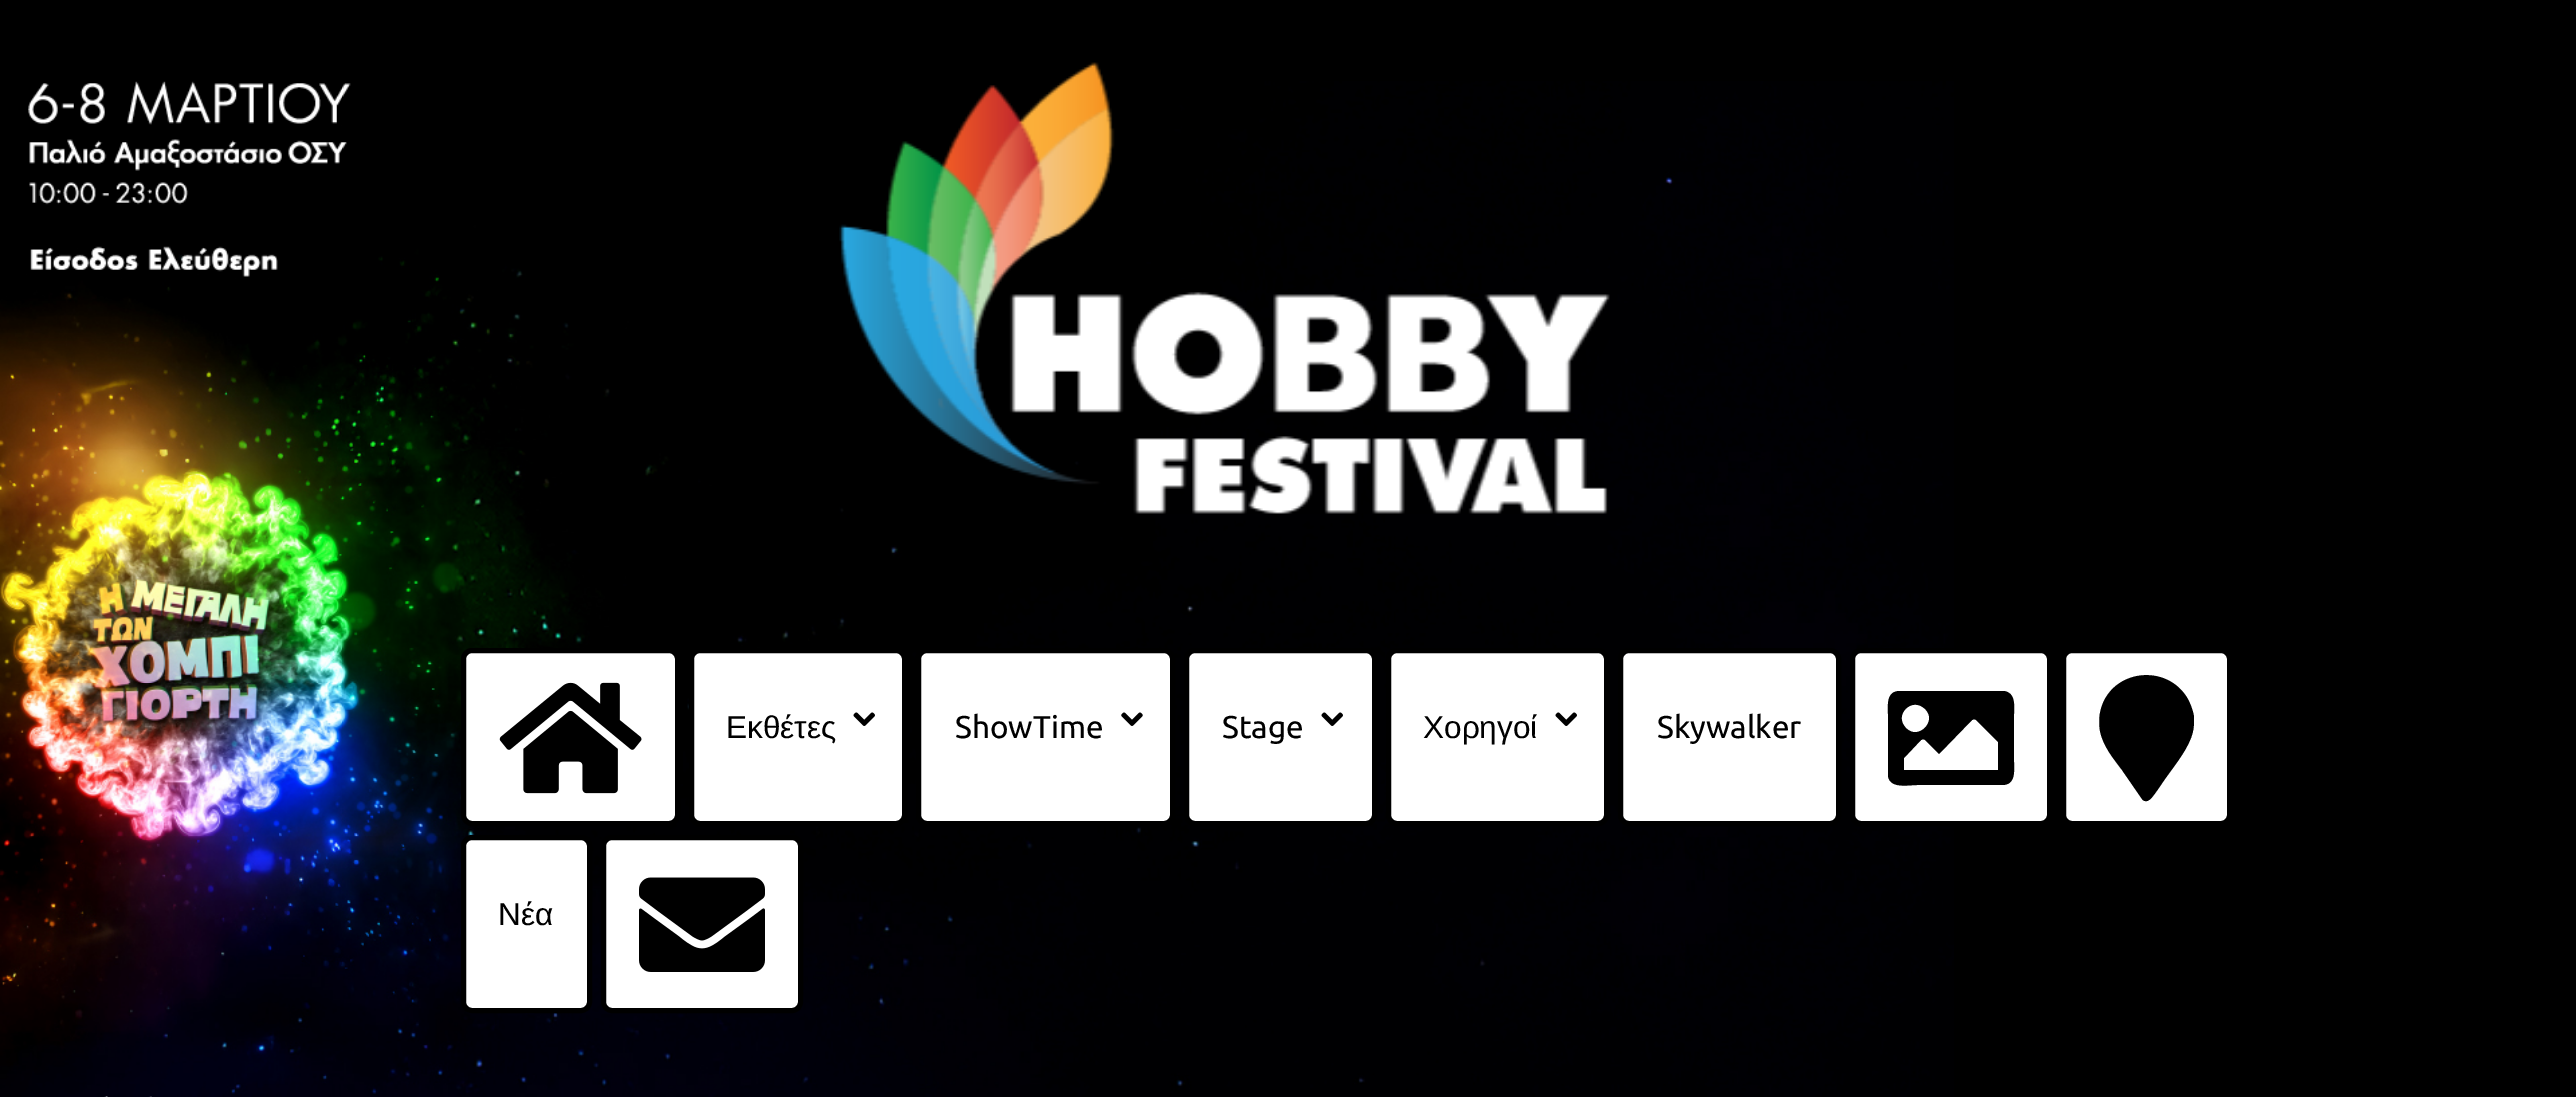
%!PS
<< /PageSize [2576 1097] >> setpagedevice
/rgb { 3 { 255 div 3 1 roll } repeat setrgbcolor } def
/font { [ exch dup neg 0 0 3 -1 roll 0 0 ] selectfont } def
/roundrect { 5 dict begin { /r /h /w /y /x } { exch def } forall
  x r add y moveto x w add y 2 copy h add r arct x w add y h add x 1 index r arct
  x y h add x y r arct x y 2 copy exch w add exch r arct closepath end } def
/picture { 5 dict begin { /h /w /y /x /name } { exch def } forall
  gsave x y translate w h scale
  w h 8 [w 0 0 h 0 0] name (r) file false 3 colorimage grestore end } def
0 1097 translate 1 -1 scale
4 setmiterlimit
0 0 0 rgb
0 0 2576 1097 rectfill
(img/1.rgb) 0 81 1954 1016 picture
(img/2.rgb) 839 62 771 452 picture
255 255 255 rgb
463.5 650.5 214 173 8.5 roundrect gsave fill grestore
0 0 0 rgb
5 setlinewidth
stroke
(img/3.rgb) 499 682 143 112 picture
255 255 255 rgb
691.5 650.5 213 173 8.5 roundrect gsave fill grestore
0 0 0 rgb
stroke
(img/4.rgb) 853 712 22 14 picture
255 255 255 rgb
918.5 650.5 254 173 8.5 roundrect gsave fill grestore
0 0 0 rgb
stroke
(img/5.rgb) 1121 712 22 14 picture
255 255 255 rgb
1186.5 650.5 188 173 8.5 roundrect gsave fill grestore
0 0 0 rgb
stroke
(img/4.rgb) 1321 712 22 14 picture
255 255 255 rgb
1388.5 650.5 218 173 8.5 roundrect gsave fill grestore
0 0 0 rgb
stroke
(img/4.rgb) 1555 712 22 14 picture
255 255 255 rgb
1620.5 650.5 218 173 8.5 roundrect gsave fill grestore
0 0 0 rgb
stroke
255 255 255 rgb
1852.5 650.5 197 173 8.5 roundrect gsave fill grestore
0 0 0 rgb
stroke
2002 785 moveto 1917 785 lineto 1908 785 1890 789 1888 776 curveto 1888 714 lineto 1888 705 1886 691 1900 691 curveto 2004 691 lineto 2016 693 2014 706 2014 714 curveto 2014 762 lineto 2014 771 2016 785 2002 785 curveto closepath 1925 709 moveto 1912 696 1893 715 1906 728 curveto 1918 741 1938 721 1925 709 curveto closepath 1904 770 moveto 1998 770 lineto 1998 742 lineto 1976 720 lineto 1975 719 1974 719 1972 720 curveto 1939 754 lineto 1925 740 lineto 1924 739 1923 739 1921 740 curveto 1904 758 lineto closepath fill
255 255 255 rgb
2063.5 650.5 166 173 8.5 roundrect gsave fill grestore
0 0 0 rgb
stroke
2142 799 moveto 2122 770 lineto 2113 758 2103 746 2100 731 curveto 2099 725 2099 718 2100 713 curveto 2108 671 2163 662 2186 696 curveto 2190 702 2193 710 2194 717 curveto 2194 722 2194 727 2193 731 curveto 2190 747 2174 766 2165 779 curveto 2162 783 2152 799 2149 800 curveto 2147 802 2143 801 2142 799 curveto closepath fill
255 255 255 rgb
463.5 837.5 126 173 8.5 roundrect gsave fill grestore
0 0 0 rgb
stroke
255 255 255 rgb
603.5 837.5 197 173 8.5 roundrect gsave fill grestore
0 0 0 rgb
stroke
(img/6.rgb) 639 877 126 95 picture
/LiberationSans-Regular 31.5 font
726 738 moveto (Εκθέτες) show
/Ubuntu-Regular 31.5 font
955 738 moveto (ShowTime) show
1222 738 moveto (Stage) show
/LiberationSans-Regular 31.5 font
1423 738 moveto (Χορηγοί) show
/Ubuntu-Regular 31.5 font
1657 738 moveto (Skywalker) show
/LiberationSans-Regular 31.5 font
498 925 moveto (Νέα) show
showpage
